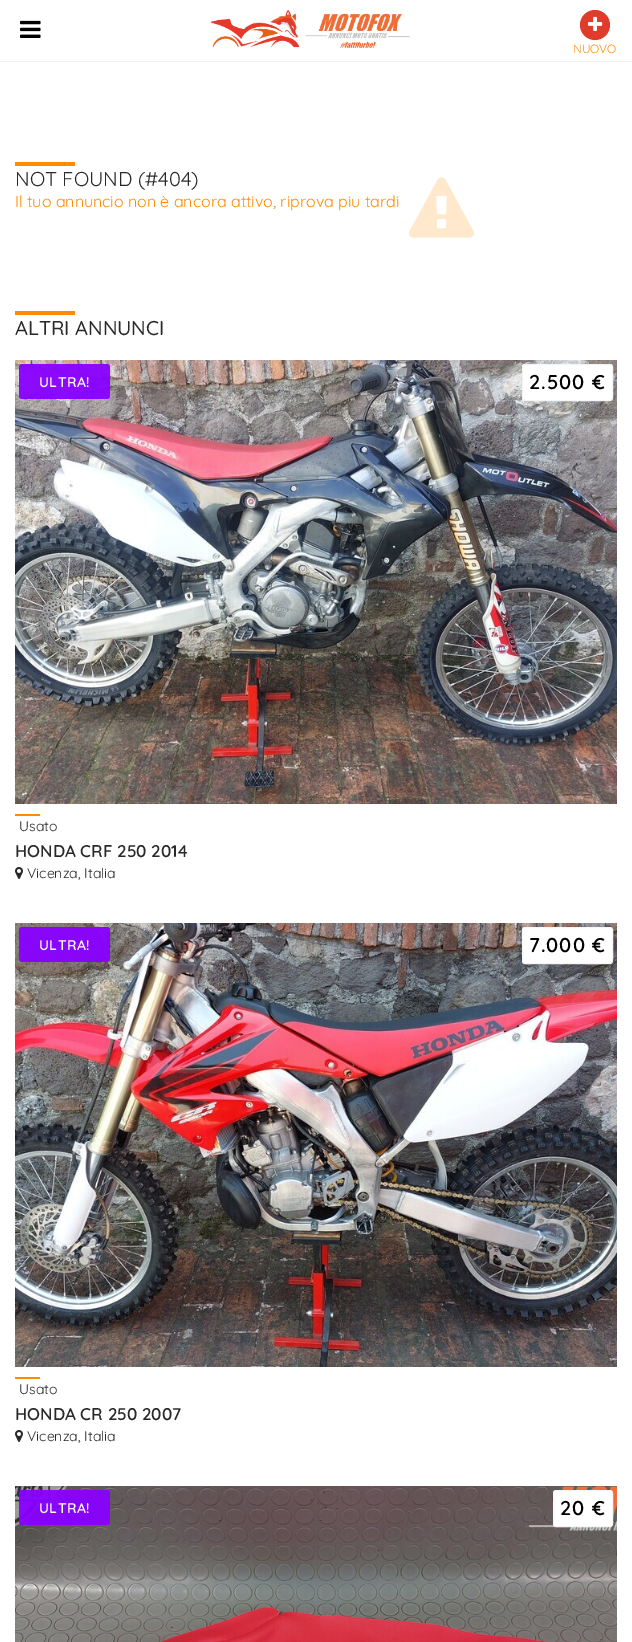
%!PS
<< /PageSize [632 1642] /PageUsesTransparency true >> setpagedevice
/rgb { 3 { 255 div 3 1 roll } repeat setrgbcolor } def
/font { [ exch dup neg 0 0 3 -1 roll 0 0 ] selectfont } def
/alpha { dup .setfillconstantalpha .setstrokeconstantalpha } def
/circle { newpath 0 360 arc closepath } def
/roundrect { 5 dict begin { /r /h /w /y /x } { exch def } forall
  x r add y moveto x w add y 2 copy h add r arct x w add y h add x 1 index r arct
  x y h add x y r arct x y 2 copy exch w add exch r arct closepath end } def
/picture { 5 dict begin { /h /w /y /x /name } { exch def } forall
  gsave x y translate w h scale
  w h 8 [w 0 0 h 0 0] name (r) file false 3 colorimage grestore end } def
0 .pushpdf14devicefilter
0 1642 translate 1 -1 scale
4 setmiterlimit
255 255 255 rgb
0 0 632 1642 rectfill
240 240 240 rgb
0 61 632 1 rectfill
(img/1.rgb) 20 20 21 18 picture
(img/2.rgb) 210 10 200 38 picture
225 59 43 rgb
595 25 15 circle fill
(img/3.rgb) 588 16 15 15 picture
255 140 0 rgb
15 162 60 4 rectfill
(img/4.rgb) 409 177 65 61 picture
15 311 60 4 rectfill
(img/5.rgb) 15 360 602 444 picture
0.95 alpha
137 0 255 rgb
19 364 91 35 3 roundrect fill
1 alpha
255 255 255 rgb
522.5 364.5 90 36 2.5 roundrect gsave fill grestore
245 245 245 rgb
stroke
255 140 0 rgb
15 814 25 2 rectfill
(img/6.rgb) 15 867 8 12 picture
(img/7.rgb) 15 923 602 444 picture
0.95 alpha
137 0 255 rgb
19 927 91 35 3 roundrect fill
1 alpha
255 255 255 rgb
522.5 927.5 90 36 2.5 roundrect gsave fill grestore
245 245 245 rgb
stroke
255 140 0 rgb
15 1377 25 2 rectfill
(img/6.rgb) 15 1430 8 12 picture
(img/8.rgb) 15 1486 602 156 picture
0.95 alpha
137 0 255 rgb
19 1490 91 35 3 roundrect fill
1 alpha
255 255 255 rgb
553.5 1490.5 59 36 2.5 roundrect gsave fill grestore
245 245 245 rgb
stroke
/Quicksand-Regular 12 font
255 140 0 rgb
573 53 moveto (NUOVO) show
/Quicksand-Regular 20 font
41 41 41 rgb
15 186 moveto (NOT FOUND \(#404\)) show
/Quicksand-Regular 16 font
255 140 0 rgb
15 207 moveto (Il tuo annuncio non è ancora attivo, riprova piu tardi) show
/Quicksand-Medium 20 font
41 41 41 rgb
15 335 moveto (ALTRI ANNUNCI) show
/Quicksand-SemiBold 14 font
255 255 255 rgb
39 387 moveto 0.5 0 (ULTRA!) ashow
/Quicksand-SemiBold 20 font
0 0 0 rgb
529 389 moveto 1 0 (2.500 €) ashow
/Quicksand-Regular 14 font
41 41 41 rgb
19 831 moveto (Usato) show
/Quicksand-SemiBold 17 font
15 857 moveto (HONDA CRF 250 2014) show
/Quicksand-Regular 14 font
27 878 moveto (Vicenza, Italia) show
/Quicksand-SemiBold 14 font
255 255 255 rgb
39 950 moveto 0.5 0 (ULTRA!) ashow
/Quicksand-SemiBold 20 font
0 0 0 rgb
529 952 moveto 1 0 (7.000 €) ashow
/Quicksand-Regular 14 font
41 41 41 rgb
19 1394 moveto (Usato) show
/Quicksand-SemiBold 17 font
15 1420 moveto (HONDA CR 250 2007) show
/Quicksand-Regular 14 font
27 1441 moveto (Vicenza, Italia) show
/Quicksand-SemiBold 14 font
255 255 255 rgb
39 1513 moveto 0.5 0 (ULTRA!) ashow
/Quicksand-SemiBold 20 font
0 0 0 rgb
560 1515 moveto 1 0 (20 €) ashow
.poppdf14devicefilter showpage
